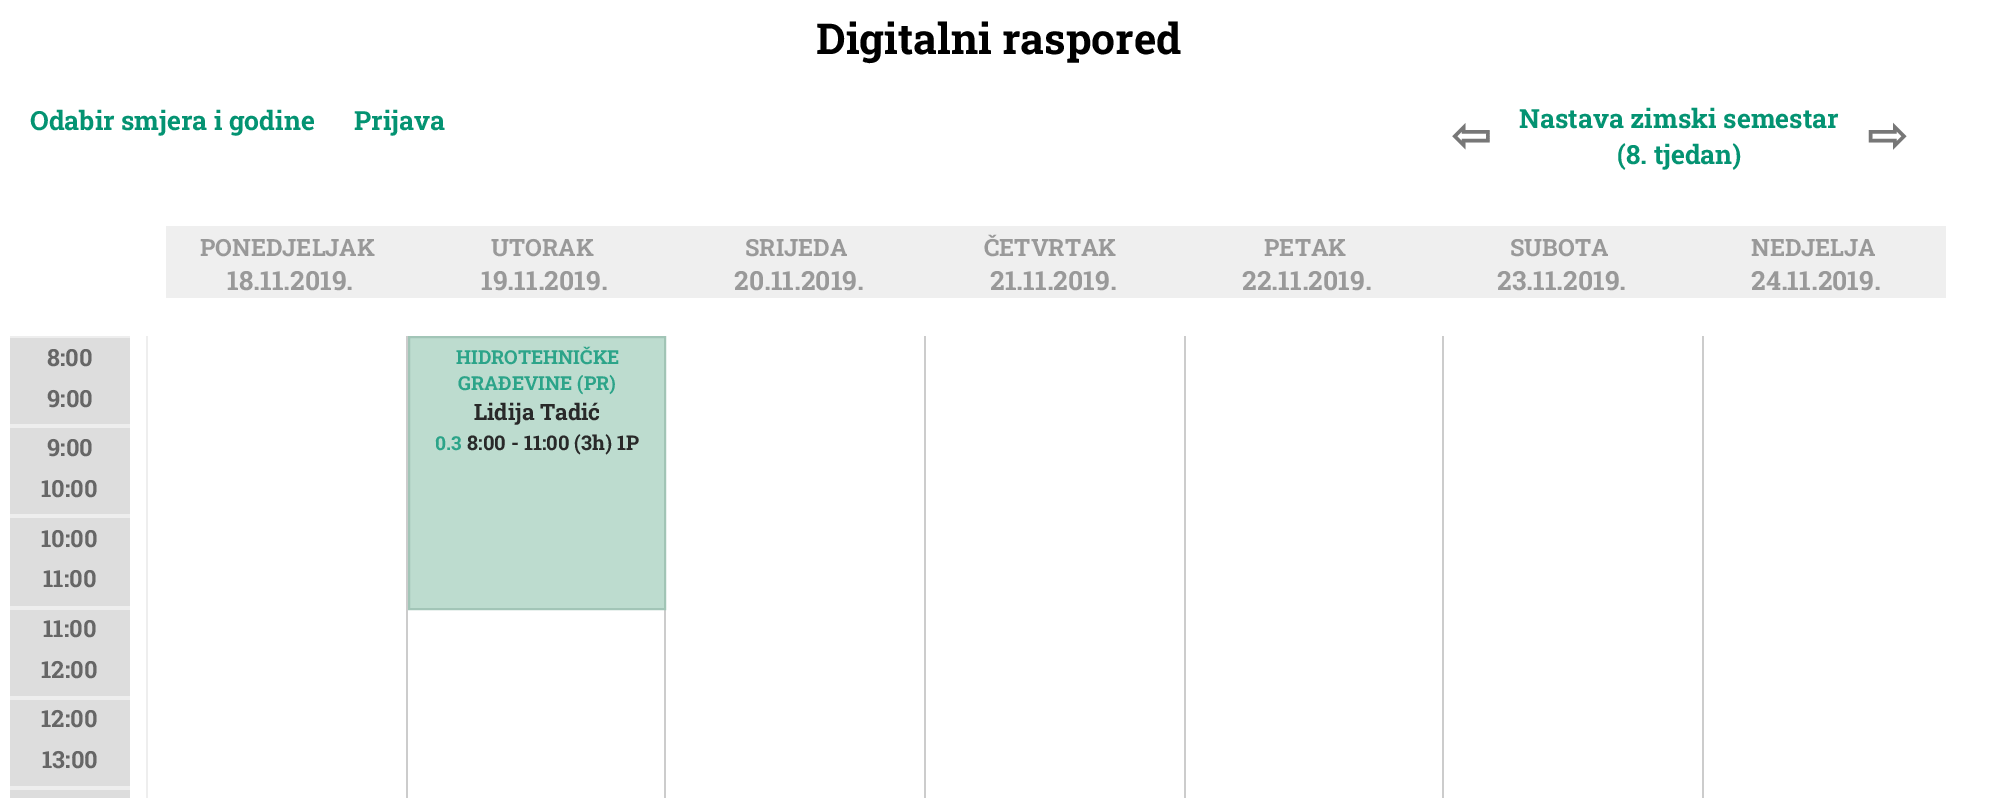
%!PS
<< /PageSize [1995 798] /PageUsesTransparency true >> setpagedevice
/rgb { 3 { 255 div 3 1 roll } repeat setrgbcolor } def
/font { [ exch dup neg 0 0 3 -1 roll 0 0 ] selectfont } def
/alpha { dup .setfillconstantalpha .setstrokeconstantalpha } def
0 .pushpdf14devicefilter
0 798 translate 1 -1 scale
4 setmiterlimit
255 255 255 rgb
0 0 1995 798 rectfill
[
  [408 336 256 274 189 220 207]
  [166 226 1780 72 239 239 239]
  [146 336 2 462 238 238 238]
  [10 338 120 86 221 221 221]
  [10 336 120 2 238 238 238]
  [10 424 120 4 238 238 238]
  [10 428 120 86 221 221 221]
  [10 514 120 4 238 238 238]
  [10 518 120 88 221 221 221]
  [10 606 120 4 238 238 238]
  [10 610 120 86 221 221 221]
  [10 696 120 4 238 238 238]
  [10 700 120 86 221 221 221]
  [10 786 120 4 238 238 238]
  [10 790 120 8 221 221 221]
  [406 336 2 462 204 204 204]
  [664 610 2 188 204 204 204]
  [664 336 2 274 181 212 199]
] { aload pop rgb rectfill } forall
0.84 alpha
157 193 178 rgb
2 setlinewidth
409 337 256 272 rectstroke
1 alpha
[
  [924 336 2 462 204 204 204]
  [1184 336 2 462 204 204 204]
  [1442 336 2 462 204 204 204]
  [1702 336 2 462 204 204 204]
] { aload pop rgb rectfill } forall
/RobotoSlab-Bold 42.5 font
0 0 0 rgb
816 54 moveto (Digitalni raspored) show
/RobotoSlab-Bold 26.5 font
4 147 114 rgb
30 130 moveto (Odabir smjera i godine) show
354 130 moveto (Prijava) show
/DejaVuSans-Bold 48 font
119 119 119 rgb
1451 152 moveto (⇦) show
/RobotoSlab-Bold 26.5 font
4 147 114 rgb
1519 128 moveto (Nastava zimski semestar) show
1617 164 moveto (\(8. tjedan\)) show
/DejaVuSans-Bold 48 font
119 119 119 rgb
1867 152 moveto (⇨) show
/RobotoSlab-Bold 23.75 font
153 153 153 rgb
200 256 moveto (PONEDJELJAK) show
/RobotoSlab-Bold 26.5 font
227 290 moveto (18.11.2019.) show
/RobotoSlab-Bold 23.75 font
491 256 moveto (UTORAK) show
/RobotoSlab-Bold 26.5 font
481 290 moveto (19.11.2019.) show
/RobotoSlab-Bold 23.75 font
745 256 moveto (SRIJEDA) show
/RobotoSlab-Bold 26.5 font
734 290 moveto (20.11.2019.) show
/RobotoSlab-Bold 23.75 font
984 256 moveto (ČETVRTAK) show
/RobotoSlab-Bold 26.5 font
990 290 moveto (21.11.2019.) show
/RobotoSlab-Bold 23.75 font
1264 256 moveto (PETAK) show
/RobotoSlab-Bold 26.5 font
1242 290 moveto (22.11.2019.) show
/RobotoSlab-Bold 23.75 font
1510 256 moveto (SUBOTA) show
/RobotoSlab-Bold 26.5 font
1497 290 moveto (23.11.2019.) show
/RobotoSlab-Bold 23.75 font
1751 256 moveto (NEDJELJA) show
/RobotoSlab-Bold 26.5 font
1751 290 moveto (24.11.2019.) show
/RobotoSlab-Bold 23.75 font
102 102 102 rgb
[
  [(8:00) 47 366]
  [(9:00) 47 407]
  [(9:00) 47 456]
  [(10:00) 41 497]
  [(10:00) 41 547]
  [(11:00) 43 587]
  [(11:00) 43 637]
  [(12:00) 41 678]
  [(12:00) 41 727]
  [(13:00) 42 768]
] { aload pop moveto show } forall
/RobotoSlab-Bold 19.25 font
44 164 137 rgb
456 364 moveto (HIDROTEHNIČKE) show
458 390 moveto (GRAĐEVINE \(PR\)) show
/RobotoSlab-Bold 22.5 font
41 41 41 rgb
474 420 moveto (Lidija Tadić) show
/RobotoSlab-Bold 19.25 font
44 164 137 rgb
435 450 moveto (0.3) show
/RobotoSlab-Bold 20.25 font
41 41 41 rgb
467 450 moveto (8:00 - 11:00 \(3h\) 1P) show
.poppdf14devicefilter showpage
